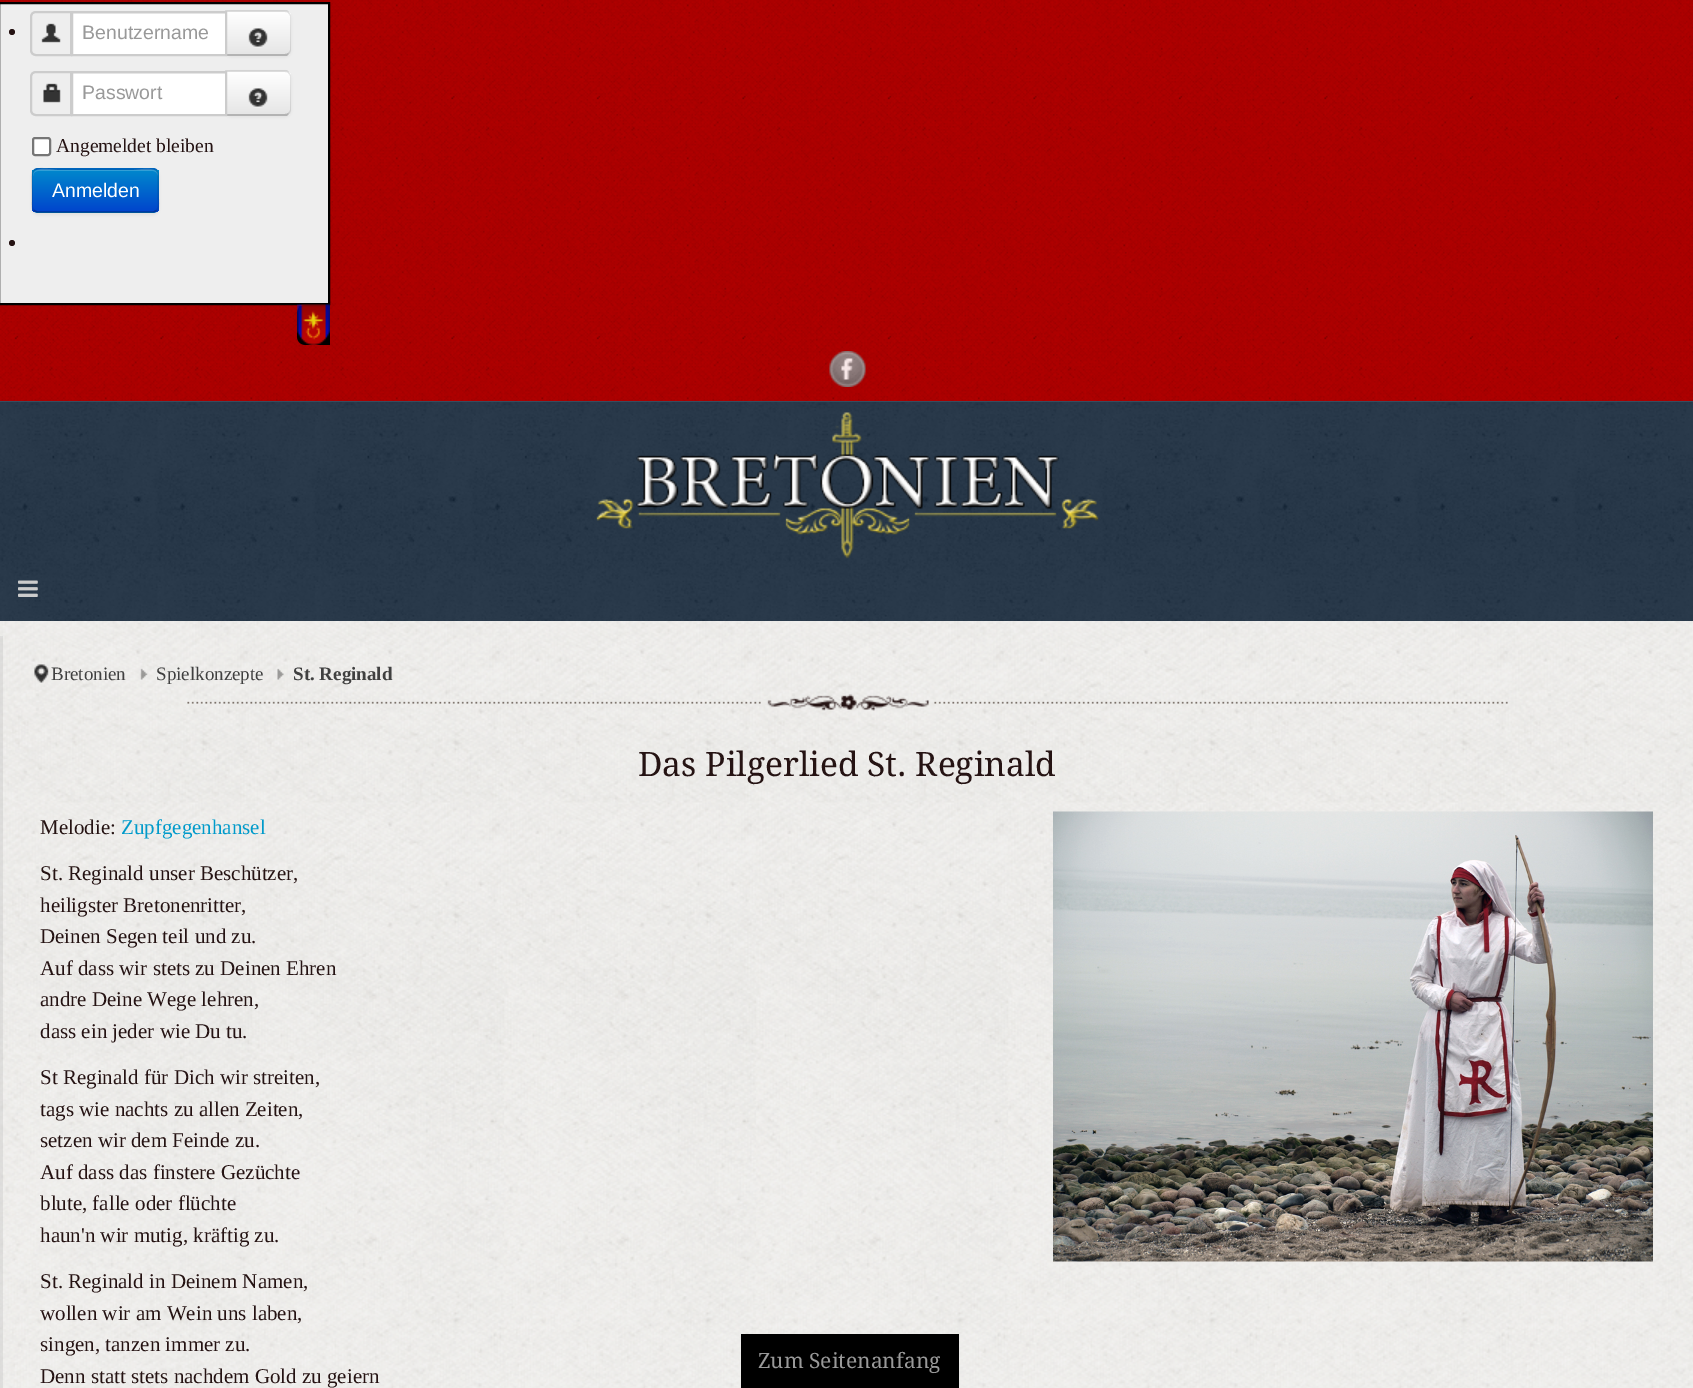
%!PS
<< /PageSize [1693 1388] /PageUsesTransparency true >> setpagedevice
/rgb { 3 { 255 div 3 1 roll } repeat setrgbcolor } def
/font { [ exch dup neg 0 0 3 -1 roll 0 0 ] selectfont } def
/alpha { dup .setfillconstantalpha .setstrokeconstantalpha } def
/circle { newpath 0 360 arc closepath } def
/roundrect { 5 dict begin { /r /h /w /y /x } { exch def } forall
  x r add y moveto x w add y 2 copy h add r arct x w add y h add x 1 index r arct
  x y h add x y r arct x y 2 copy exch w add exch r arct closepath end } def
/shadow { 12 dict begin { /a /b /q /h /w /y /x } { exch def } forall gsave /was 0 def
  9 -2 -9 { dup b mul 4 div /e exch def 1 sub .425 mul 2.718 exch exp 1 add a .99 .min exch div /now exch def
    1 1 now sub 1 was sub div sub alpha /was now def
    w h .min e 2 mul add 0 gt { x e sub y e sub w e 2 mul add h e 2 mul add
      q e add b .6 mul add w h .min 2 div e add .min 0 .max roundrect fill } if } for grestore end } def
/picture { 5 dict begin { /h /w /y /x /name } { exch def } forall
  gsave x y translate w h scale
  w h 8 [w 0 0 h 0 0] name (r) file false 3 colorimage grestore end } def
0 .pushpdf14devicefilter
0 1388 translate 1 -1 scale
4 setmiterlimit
255 255 255 rgb
0 0 1693 1388 rectfill
(img/1.rgb) 0 621 1693 767 picture
(img/2.rgb) 0 0 1693 401 picture
57 76 95 rgb
0 401 1693 1 rectfill
238 238 238 rgb
-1 3 moveto 329 3 lineto 329 304 lineto -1 304 lineto closepath gsave fill grestore
0 0 0 rgb
2 setlinewidth
stroke
37 19 19 rgb
12 32 3 circle fill
204 204 204 rgb
36 12 moveto 71 12 lineto 71 55 lineto 36 55 lineto 33 55 31 53 31 50 curveto 31 17 lineto 31 14 33 12 36 12 curveto closepath stroke
(img/3.rgb) 41 23 20 20 picture
0 0 0 rgb
225 12 66 45 6 1.5 0.05 shadow
255 255 255 rgb
73 14 152 40 rectfill
245 245 245 rgb
225 11 moveto 285 11 lineto 288.5 11 291 13.5 291 17 curveto 291 50 lineto 291 53.5 288.5 56 285 56 curveto 225 56 lineto closepath fill
gsave
225 11 moveto 285 11 lineto 288.5 11 291 13.5 291 17 curveto 291 50 lineto 291 53.5 288.5 56 285 56 curveto 225 56 lineto closepath clip newpath
gsave 227 12 moveto 291 12 lineto 291 54 lineto 227 54 lineto closepath clip newpath
<< /ShadingType 2 /ColorSpace /DeviceRGB /Coords [258 12 258 54] /Extend [true true] /Function << /FunctionType 2 /Domain [0 1] /C0 [1 1 1] /C1 [0.902 0.902 0.902] /N 1 >> >> shfill grestore
grestore
0.1 alpha
0 0 0 rgb
225 10 moveto 287 10 lineto 289 12 lineto 288 13 lineto 287 12 286 12 285 12 curveto 226 12 lineto closepath fill
291 50 moveto 291 16 lineto 291 15 290 13 289 12 curveto 288 13 lineto 289 14 290 15 290 16 curveto 290 50 lineto 290 51 289 52 288 53 curveto 289 54 lineto 290 53 291 51 291 50 curveto closepath fill
1 alpha
179 179 179 rgb
287 56 moveto 225 56 lineto 226 54 lineto 285 54 lineto 286 54 287 54 288 53 curveto 289 54 lineto closepath fill
204 204 204 rgb
72 12 154 43 rectstroke
(img/4.rgb) 248 28 20 20 picture
36 72 moveto 71 72 lineto 71 115 lineto 36 115 lineto 33 115 31 113 31 110 curveto 31 77 lineto 31 74 33 72 36 72 curveto closepath stroke
(img/5.rgb) 43 83 18 20 picture
0 0 0 rgb
225 72 66 45 6 1.5 0.05 shadow
255 255 255 rgb
73 74 152 40 rectfill
245 245 245 rgb
225 71 moveto 285 71 lineto 288.5 71 291 73.5 291 77 curveto 291 110 lineto 291 113.5 288.5 116 285 116 curveto 225 116 lineto closepath fill
gsave
225 71 moveto 285 71 lineto 288.5 71 291 73.5 291 77 curveto 291 110 lineto 291 113.5 288.5 116 285 116 curveto 225 116 lineto closepath clip newpath
gsave 227 72 moveto 291 72 lineto 291 114 lineto 227 114 lineto closepath clip newpath
<< /ShadingType 2 /ColorSpace /DeviceRGB /Coords [258 72 258 114] /Extend [true true] /Function << /FunctionType 2 /Domain [0 1] /C0 [1 1 1] /C1 [0.902 0.902 0.902] /N 1 >> >> shfill grestore
grestore
0.1 alpha
0 0 0 rgb
225 70 moveto 287 70 lineto 289 72 lineto 288 73 lineto 287 72 286 72 285 72 curveto 226 72 lineto closepath fill
291 110 moveto 291 76 lineto 291 75 290 73 289 72 curveto 288 73 lineto 289 74 290 75 290 76 curveto 290 110 lineto 290 111 289 112 288 113 curveto 289 114 lineto 290 113 291 111 291 110 curveto closepath fill
1 alpha
179 179 179 rgb
287 116 moveto 225 116 lineto 226 114 lineto 285 114 lineto 286 114 287 114 288 113 curveto 289 114 lineto closepath fill
204 204 204 rgb
72 72 154 43 rectstroke
(img/4.rgb) 248 88 20 20 picture
255 255 255 rgb
33 138 17 17 2 roundrect gsave fill grestore
118 118 118 rgb
stroke
0 0 0 rgb
32 170 127 45 6 1.5 0.05 shadow
0 109 204 rgb
32 168 127 45 6 roundrect fill
gsave
32 168 127 45 6 roundrect clip newpath
gsave 32 170 moveto 159 170 lineto 159 212 lineto 32 212 lineto closepath clip newpath
<< /ShadingType 2 /ColorSpace /DeviceRGB /Coords [95 170 95 212] /Extend [true true] /Function << /FunctionType 2 /Domain [0 1] /C0 [0 0.533 0.8] /C1 [0 0.267 0.8] /N 1 >> >> shfill grestore
grestore
0.2 alpha
255 255 255 rgb
38 171 moveto 153 171 lineto 155 171 158 173 158 176 curveto 158 165 138 170 134 170 curveto 57 170 lineto 53 170 33 165 33 176 curveto 33 173 35 171 38 171 curveto closepath fill
0.25 alpha
0 0 0 rgb
1.5 setlinewidth
156.5 210.5 moveto 153.5 212 lineto 37 212 lineto 34 210.5 lineto stroke
0.1 alpha
34 210.5 moveto 31.5 208.5 32 204.5 32 201.5 curveto 32 190.5 lineto 32 164.5 29 169 57 169 curveto 153 169 lineto 159 169 158 175.5 158 179.5 curveto 158 196 lineto 158 199.5 160 207.5 156.5 210.5 curveto stroke
1 alpha
37 19 19 rgb
12 243 3 circle fill
0 0 0 rgb
305 305 moveto 330 305 lineto 330 345 lineto 305 345 lineto 300.5 345 297 341.5 297 337 curveto 297 313 lineto 297 308.5 300.5 305 305 305 curveto closepath fill
(img/6.rgb) 297 304 33 41 picture
(img/7.rgb) 829 351 37 36 picture
(img/8.rgb) 0 402 1693 219 picture
(img/9.rgb) 596 412 503 147 picture
(img/10.rgb) 18 580 20 17 picture
0.34 alpha
191 191 191 rgb
0 636 3 752 rectfill
1 alpha
(img/11.rgb) 187 694 1321 17 picture
(img/12.rgb) 34 664 15 19 picture
(img/13.rgb) 140 668 8 12 picture
(img/14.rgb) 277 668 7 12 picture
(img/15.rgb) 1053 811 600 451 picture
0 0 0 rgb
741 1334 218 54 rectfill
/LiberationSans-Regular 19.5 font
153 153 153 rgb
82 39 moveto (Benutzername) show
82 99 moveto (Passwort) show
/LiberationSerif-Regular 19.5 font
37 19 19 rgb
56 152 moveto (Angemeldet bleiben) show
/LiberationSans-Regular 19.5 font
255 255 255 rgb
52 197 moveto (Anmelden) show
/LiberationSerif-Regular 19 font
64 64 64 rgb
51 680 moveto (Bretonien) show
156 680 moveto (Spielkonzepte) show
/LiberationSerif-Bold 19 font
293 680 moveto (St. Reginald) show
/DroidSerif-Regular 33.6 font
37 19 19 rgb
638 776 moveto (Das Pilgerlied St. Reginald) show
/LiberationSerif-Regular 21 font
40 834 moveto (Melodie:) show
0 154 202 rgb
121 834 moveto (Zupfgegenhansel) show
37 19 19 rgb
[
  [(St. Reginald unser Beschützer,) 40 880]
  [(heiligster Bretonenritter,) 40 912]
  [(Deinen Segen teil und zu.) 40 943]
  [(Auf dass wir stets zu Deinen Ehren) 40 975]
  [(andre Deine Wege lehren,) 40 1006]
  [(dass ein jeder wie Du tu.) 40 1038]
  [(St Reginald für Dich wir streiten,) 40 1084]
  [(tags wie nachts zu allen Zeiten,) 40 1116]
  [(setzen wir dem Feinde zu.) 40 1147]
  [(Auf dass das finstere Gezüchte) 40 1179]
  [(blute, falle oder flüchte) 40 1210]
  [(haun'n wir mutig, kräftig zu.) 40 1242]
  [(St. Reginald in Deinem Namen,) 40 1288]
  [(wollen wir am Wein uns laben,) 40 1320]
  [(singen, tanzen immer zu.) 40 1351]
  [(Denn statt stets nachdem Gold zu geiern) 40 1383]
] { aload pop moveto show } forall
/DroidSerif-Regular 21 font
153 153 153 rgb
758 1368 moveto (Zum Seitenanfang) show
.poppdf14devicefilter showpage
